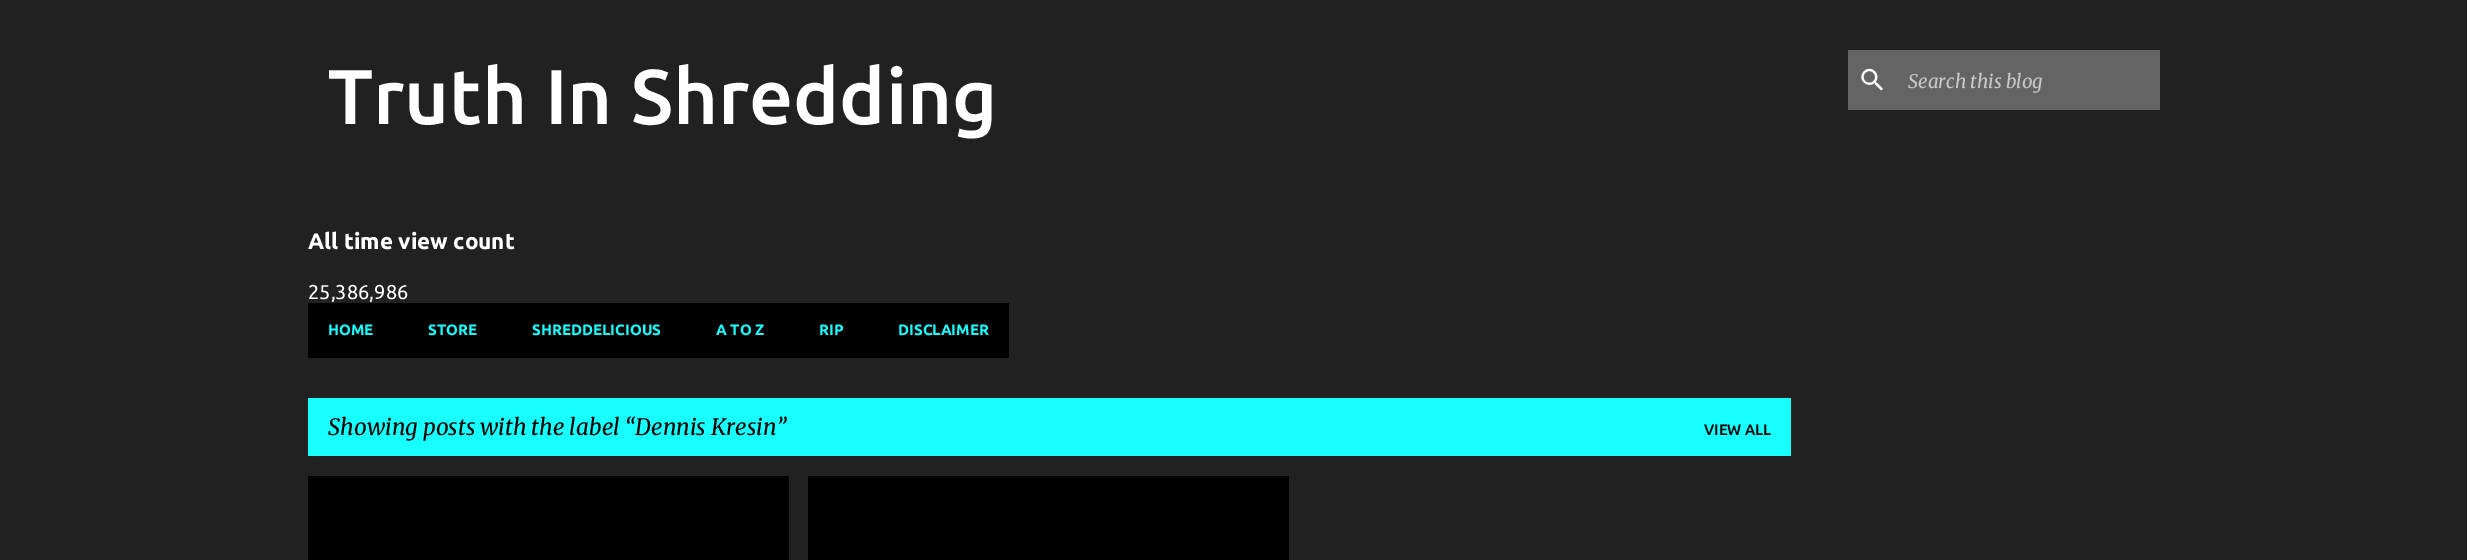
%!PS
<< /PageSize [2467 560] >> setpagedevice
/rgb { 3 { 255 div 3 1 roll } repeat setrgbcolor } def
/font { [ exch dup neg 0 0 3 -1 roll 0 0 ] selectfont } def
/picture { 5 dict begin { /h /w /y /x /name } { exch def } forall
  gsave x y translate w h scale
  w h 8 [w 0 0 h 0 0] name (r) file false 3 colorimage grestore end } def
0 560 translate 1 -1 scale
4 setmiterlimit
33 33 33 rgb
0 0 2467 560 rectfill
100 100 100 rgb
1848 50 312 60 rectfill
(img/1.rgb) 1861 68 22 23 picture
[
  [308 303 701 55 0 0 0]
  [308 398 1483 58 24 255 255]
  [308 476 481 84 0 0 0]
  [808 476 481 84 0 0 0]
] { aload pop rgb rectfill } forall
/Ubuntu-Medium 77.5 font
255 255 255 rgb
328 124 moveto (Truth In Shredding) show
/Merriweather-Italic 18.75 font
202 202 202 rgb
1908 88 moveto (Search this blog) show
/Ubuntu-Bold 22.5 font
255 255 255 rgb
308 249 moveto (All time view count) show
/Ubuntu-Regular 20 font
308 299 moveto (25,386,986) show
/Ubuntu-Bold 15 font
24 255 255 rgb
[
  [(HOME) 328 335]
  [(STORE) 428 335]
  [(SHREDDELICIOUS) 532 335]
  [(A TO Z) 716 335]
  [(RIP) 819 335]
  [(DISCLAIMER) 898 335]
] { aload pop moveto show } forall
/Merriweather-Italic 22.5 font
0 0 0 rgb
328 435 moveto (Showing posts with the label “Dennis Kresin”) show
/Ubuntu-Medium 15 font
1704 435 moveto (VIEW ALL) show
showpage
